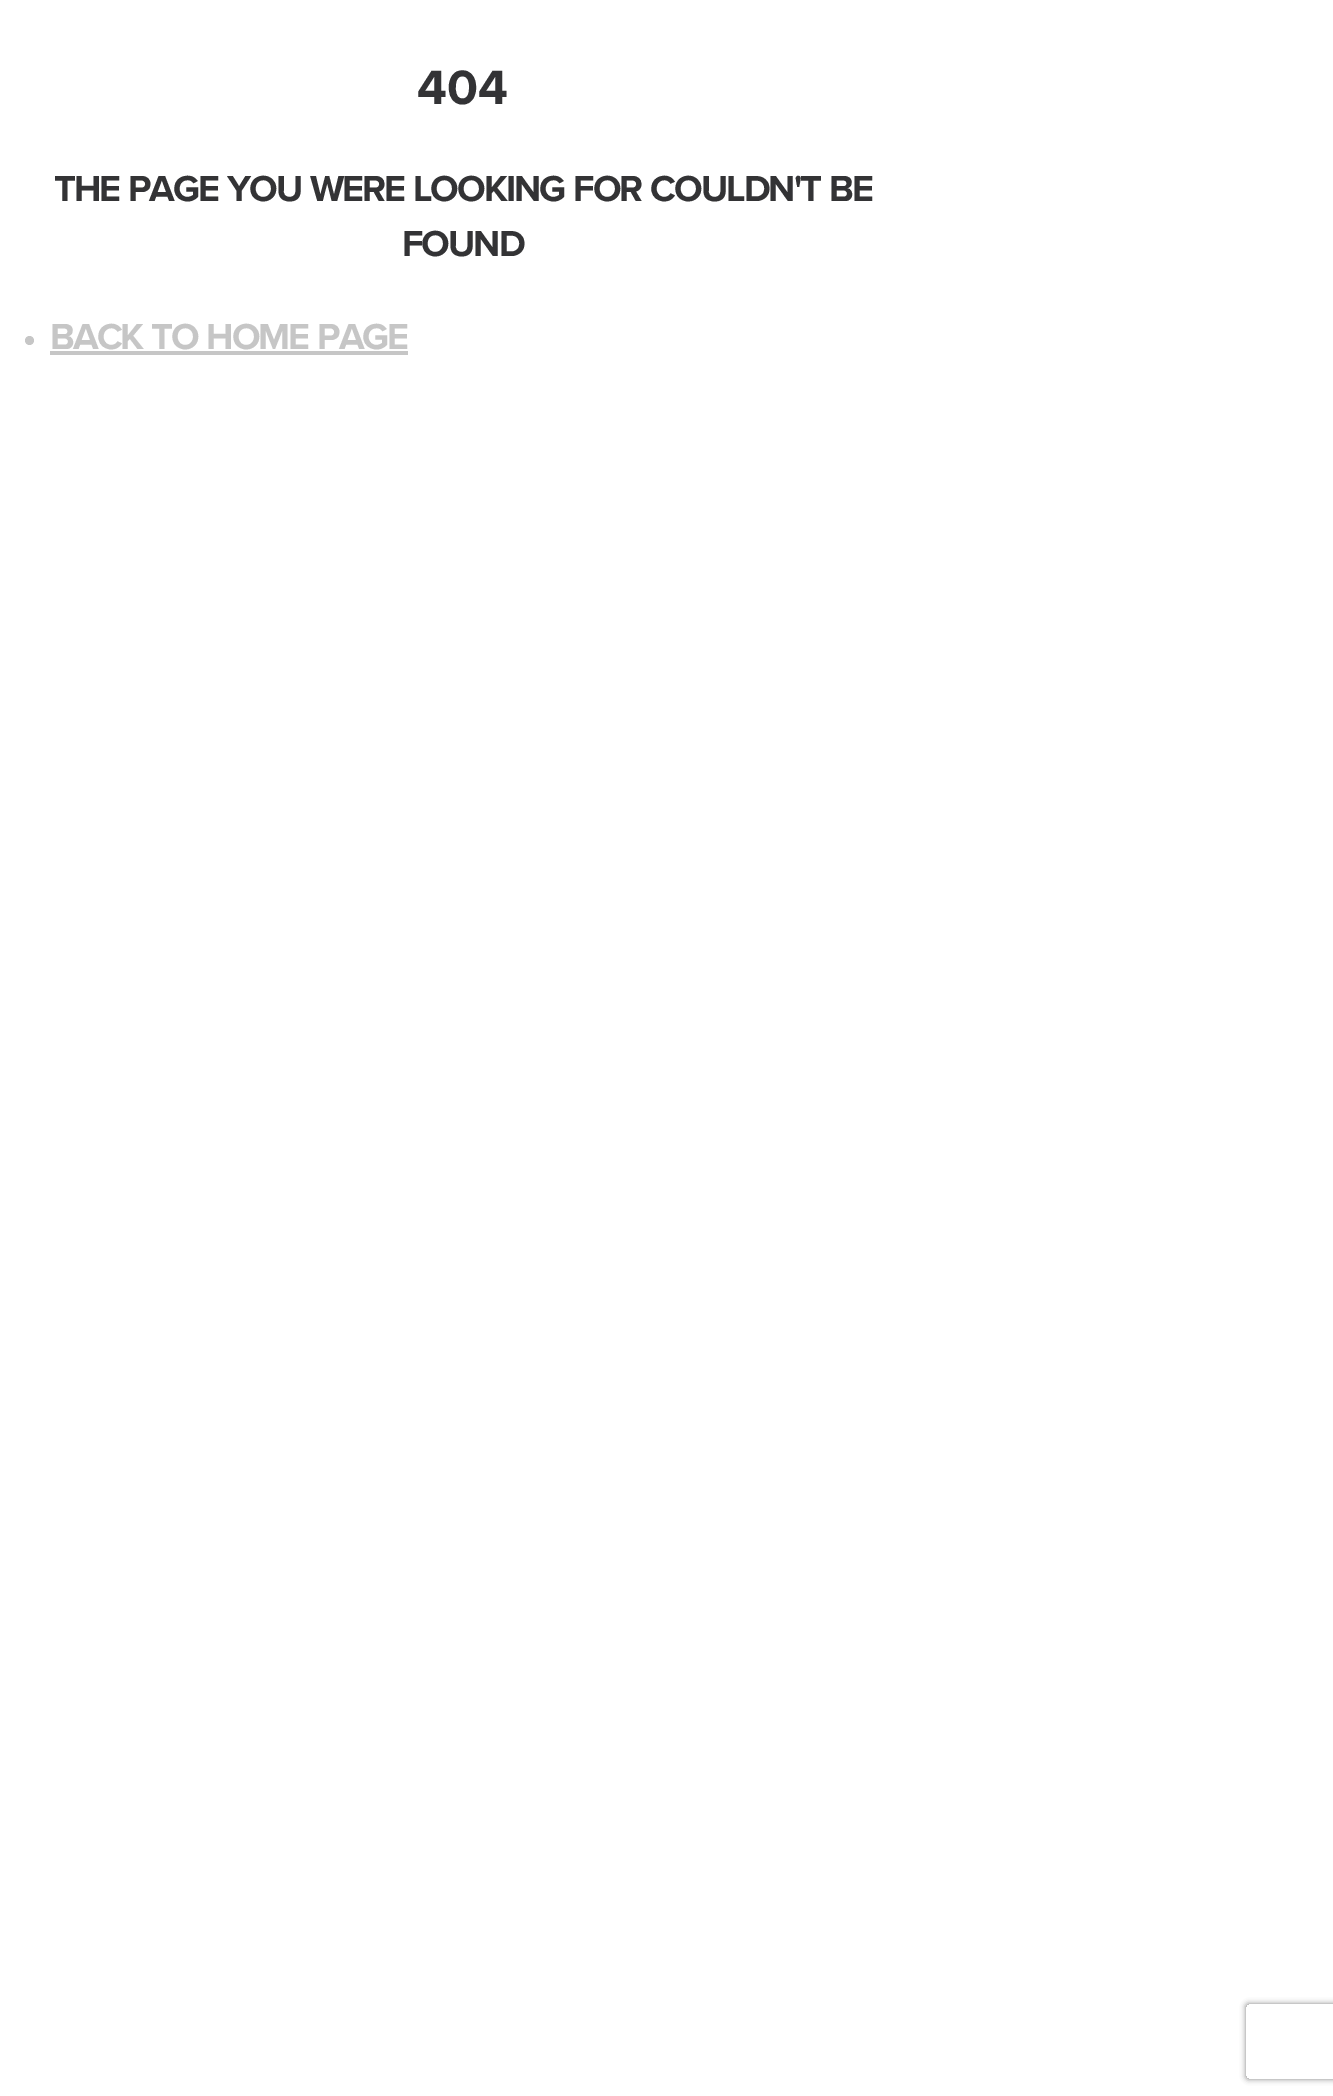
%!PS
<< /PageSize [1333 2096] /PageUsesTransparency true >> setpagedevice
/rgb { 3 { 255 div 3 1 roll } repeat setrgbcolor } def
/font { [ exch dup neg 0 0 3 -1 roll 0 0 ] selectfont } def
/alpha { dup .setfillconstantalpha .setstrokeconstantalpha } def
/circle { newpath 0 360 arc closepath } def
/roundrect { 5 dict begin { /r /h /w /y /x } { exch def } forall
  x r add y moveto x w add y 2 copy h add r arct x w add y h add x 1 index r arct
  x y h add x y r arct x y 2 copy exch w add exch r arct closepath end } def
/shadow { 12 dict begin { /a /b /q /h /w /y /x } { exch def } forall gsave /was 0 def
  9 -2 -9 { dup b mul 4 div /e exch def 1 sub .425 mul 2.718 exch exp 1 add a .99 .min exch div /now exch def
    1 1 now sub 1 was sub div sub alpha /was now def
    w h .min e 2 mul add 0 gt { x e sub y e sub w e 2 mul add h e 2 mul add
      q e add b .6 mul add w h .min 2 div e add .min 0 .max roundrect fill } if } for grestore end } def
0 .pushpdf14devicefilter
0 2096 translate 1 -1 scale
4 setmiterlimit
255 255 255 rgb
0 0 1333 2096 rectfill
198 198 198 rgb
29.5 340.5 4.5 circle fill
50 351 358 4 rectfill
gsave
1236 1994 moveto 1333 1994 lineto 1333 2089 lineto 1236 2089 lineto closepath 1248.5 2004 moveto 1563.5 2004 lineto 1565 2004 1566 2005 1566 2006.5 curveto 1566 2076.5 lineto 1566 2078 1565 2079 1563.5 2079 curveto 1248.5 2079 lineto 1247 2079 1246 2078 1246 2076.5 curveto 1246 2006.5 lineto 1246 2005 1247 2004 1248.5 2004 curveto closepath eoclip newpath
128 128 128 rgb
1246 2004 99 75 2.5 3 1 shadow
grestore
/ProximaNova-Bold 50 font
51 51 53 rgb
417 104 moveto (404) show
/ProximaNova-Bold 37.5 font
54 201 moveto 1.25 0 32 -2 0 (THE PAGE YOU WERE LOOKING FOR COULDN'T BE) awidthshow
402 256 moveto -2 0 (FOUND) ashow
198 198 198 rgb
50 349 moveto 1.25 0 32 -2 0 (BACK TO HOME PAGE) awidthshow
.poppdf14devicefilter showpage
